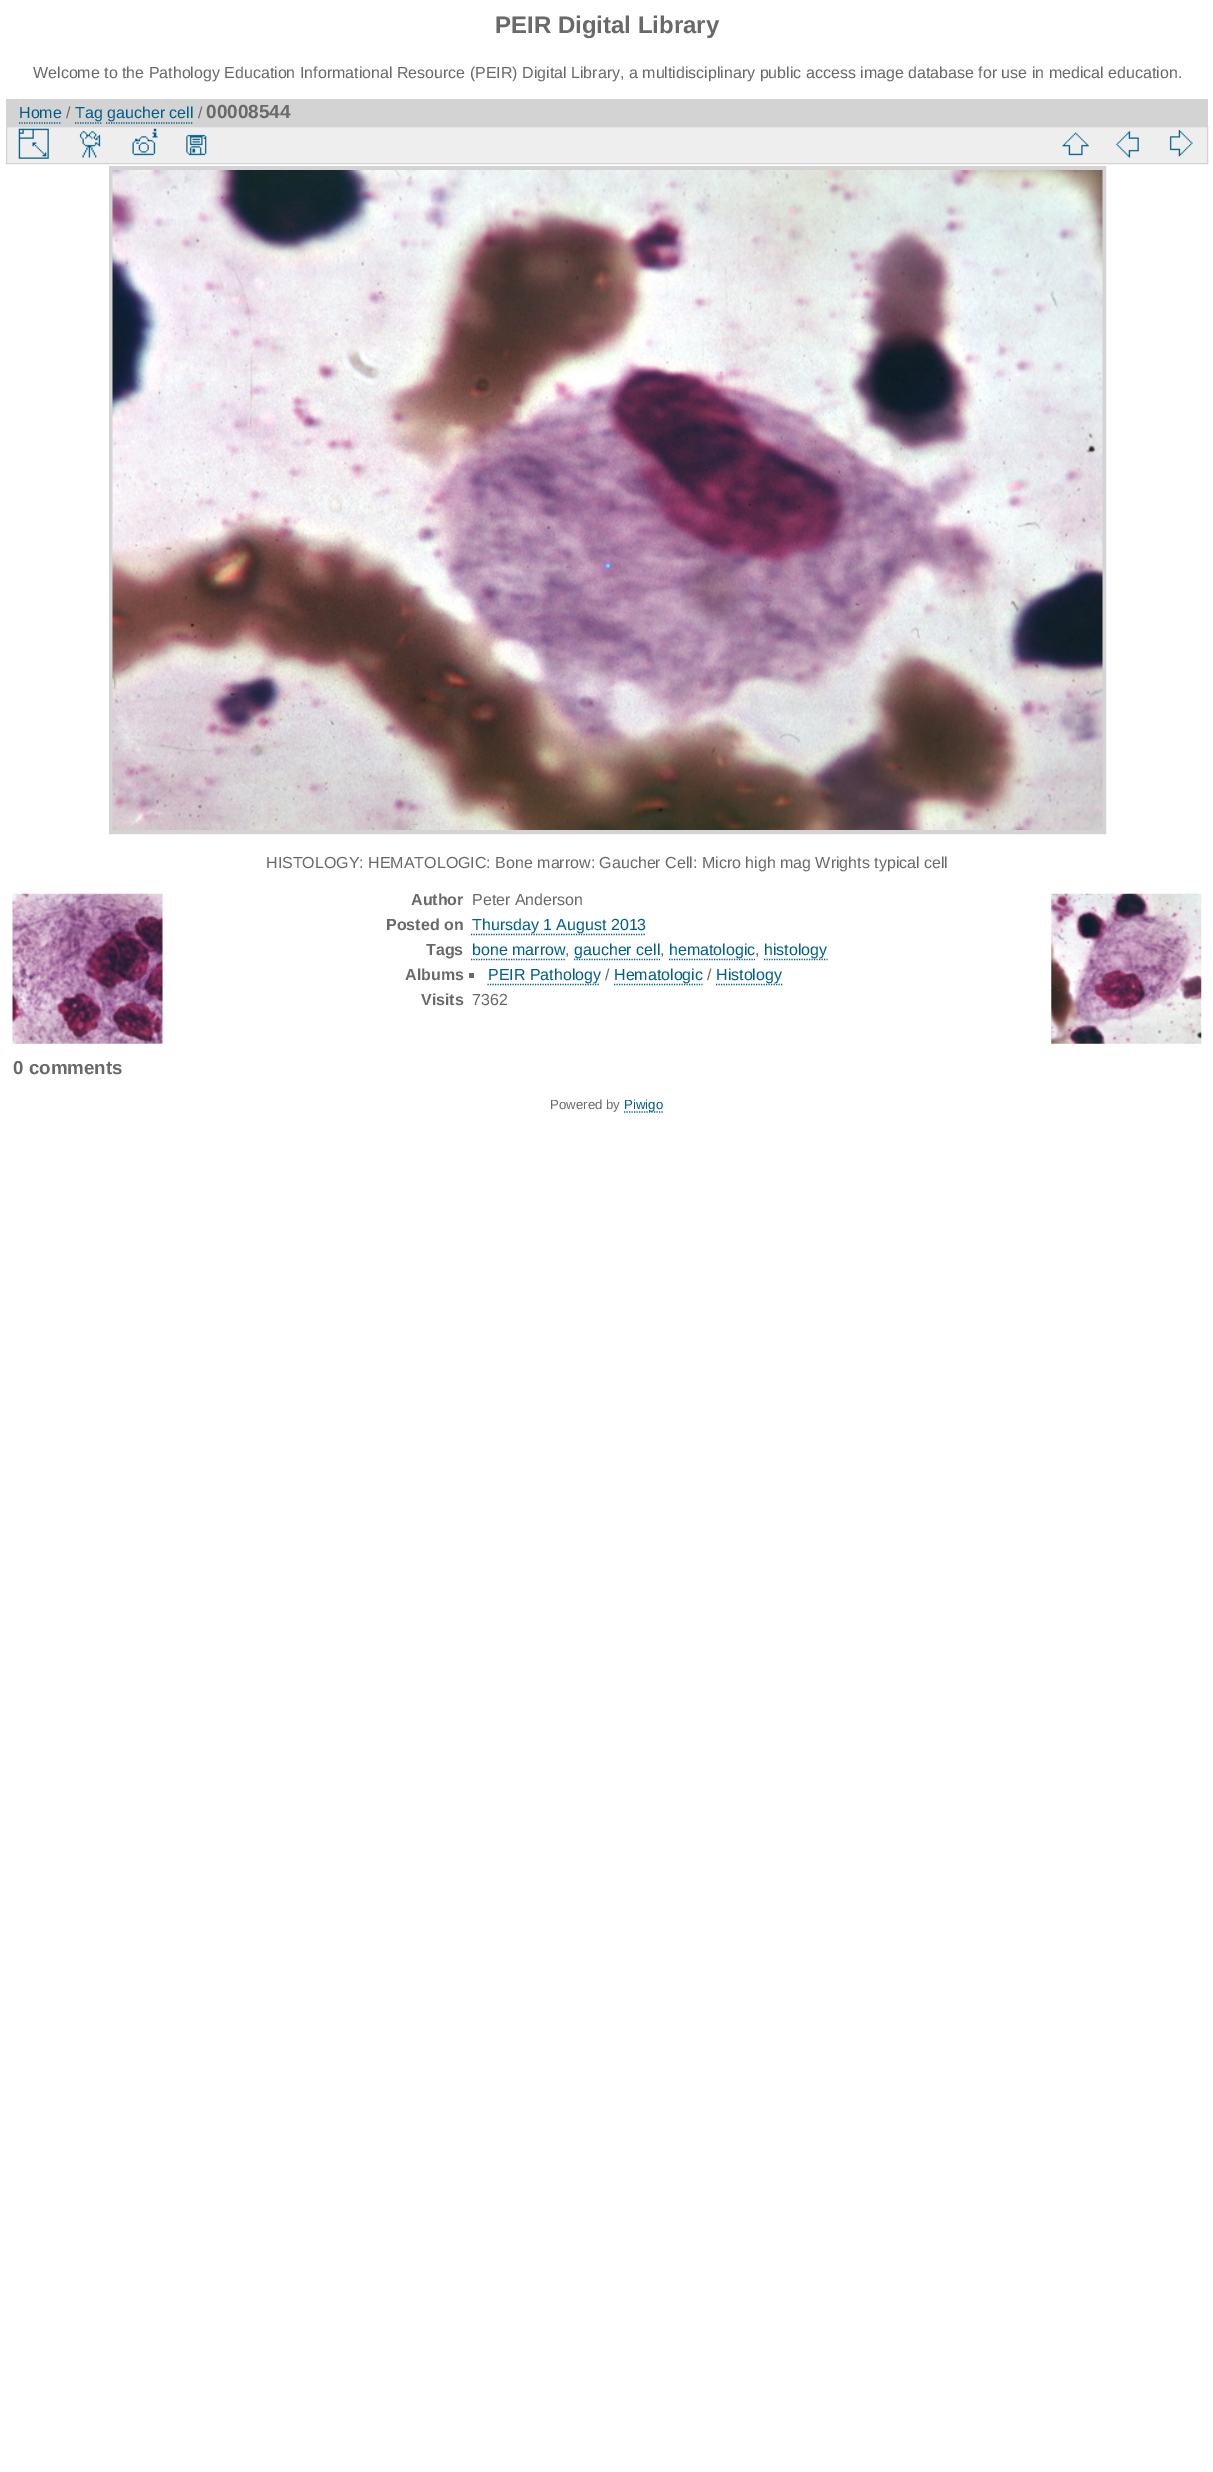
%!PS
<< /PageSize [1213 2472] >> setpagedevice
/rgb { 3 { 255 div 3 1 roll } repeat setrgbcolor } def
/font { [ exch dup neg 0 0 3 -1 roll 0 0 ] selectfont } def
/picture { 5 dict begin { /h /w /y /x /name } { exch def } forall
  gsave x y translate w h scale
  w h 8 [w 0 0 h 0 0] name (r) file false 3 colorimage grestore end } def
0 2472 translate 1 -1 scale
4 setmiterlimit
255 255 255 rgb
0 0 1213 2472 rectfill
211 211 211 rgb
6 99 1202 27 rectfill
0 94 137 rgb
1.2 setlinewidth
[1.25 1.25] 0 setdash
19 123 moveto 61 123 lineto stroke
75 123 moveto 102.5 123 lineto stroke
106 123 moveto 192.5 123 lineto stroke
238 238 238 rgb
6.5 126.5 moveto 1207.5 126.5 lineto 1207.5 163.5 lineto 6.5 163.5 lineto closepath gsave fill grestore
211 211 211 rgb
1 setlinewidth
[] 0 setdash
stroke
(img/1.rgb) 18 128 31 31 picture
(img/2.rgb) 79 131 22 27 picture
(img/3.rgb) 132 128 26 28 picture
(img/4.rgb) 186 134 21 22 picture
(img/5.rgb) 1062 132 27 24 picture
(img/6.rgb) 1116 131 23 27 picture
(img/7.rgb) 1169 129 24 28 picture
4 setlinewidth
111 168 993 664 rectstroke
(img/8.rgb) 112 170 991 660 picture
(img/9.rgb) 12 893 151 151 picture
(img/10.rgb) 1051 893 151 151 picture
0 94 137 rgb
1.2 setlinewidth
[1.25 1.25] 0 setdash
471 934.5 moveto 646 934.5 lineto stroke
471 959.5 moveto 565 959.5 lineto stroke
574 959.5 moveto 660 959.5 lineto stroke
669 959.5 moveto 755 959.5 lineto stroke
764 959.5 moveto 827.5 959.5 lineto stroke
105 105 105 rgb
469 973 5 5 rectfill
0 94 137 rgb
487.5 984.5 moveto 600 984.5 lineto stroke
614 984.5 moveto 702.5 984.5 lineto stroke
716 984.5 moveto 782.5 984.5 lineto stroke
624 1112 moveto 664 1112 lineto stroke
/LiberationSans-Bold 24 font
105 105 105 rgb
495 33 moveto (PEIR Digital Library) show
/LiberationSans-Regular 16 font
33 78 moveto (Welcome to the Pathology Education Informational Resource \(PEIR\) Digital Library, a multidisciplinary public access image database for use in medical education.) show
0 94 137 rgb
19 118 moveto (Home) show
105 105 105 rgb
66 118 moveto (/) show
0 94 137 rgb
75 118 moveto (Tag gaucher cell) show
105 105 105 rgb
198 118 moveto (/) show
/LiberationSans-Bold 19 font
206 118 moveto (00008544) show
/LiberationSans-Regular 16 font
266 868 moveto (HISTOLOGY: HEMATOLOGIC: Bone marrow: Gaucher Cell: Micro high mag Wrights typical cell) show
/LiberationSans-Bold 16 font
411 905 moveto (Author) show
/LiberationSans-Regular 16 font
472 905 moveto (Peter Anderson) show
/LiberationSans-Bold 16 font
386 930 moveto (Posted on) show
/LiberationSans-Regular 16 font
0 94 137 rgb
472 930 moveto (Thursday 1 August 2013) show
/LiberationSans-Bold 16 font
105 105 105 rgb
426 955 moveto (Tags) show
/LiberationSans-Regular 16 font
0 94 137 rgb
472 955 moveto (bone marrow) show
105 105 105 rgb
565 955 moveto (,) show
0 94 137 rgb
574 955 moveto (gaucher cell) show
105 105 105 rgb
660 955 moveto (,) show
0 94 137 rgb
669 955 moveto (hematologic) show
105 105 105 rgb
755 955 moveto (,) show
0 94 137 rgb
764 955 moveto (histology) show
/LiberationSans-Bold 16 font
105 105 105 rgb
405 980 moveto (Albums) show
/LiberationSans-Regular 16 font
0 94 137 rgb
488 980 moveto (PEIR Pathology) show
105 105 105 rgb
605 980 moveto (/) show
0 94 137 rgb
614 980 moveto (Hematologic) show
105 105 105 rgb
707 980 moveto (/) show
0 94 137 rgb
716 980 moveto (Histology) show
/LiberationSans-Bold 16 font
105 105 105 rgb
421 1005 moveto (Visits) show
/LiberationSans-Regular 16 font
472 1005 moveto (7362) show
/LiberationSans-Bold 18.75 font
13 1074 moveto (0 comments) show
/LiberationSans-Regular 13.25 font
550 1109 moveto (Powered by) show
0 94 137 rgb
624 1109 moveto (Piwigo) show
showpage
